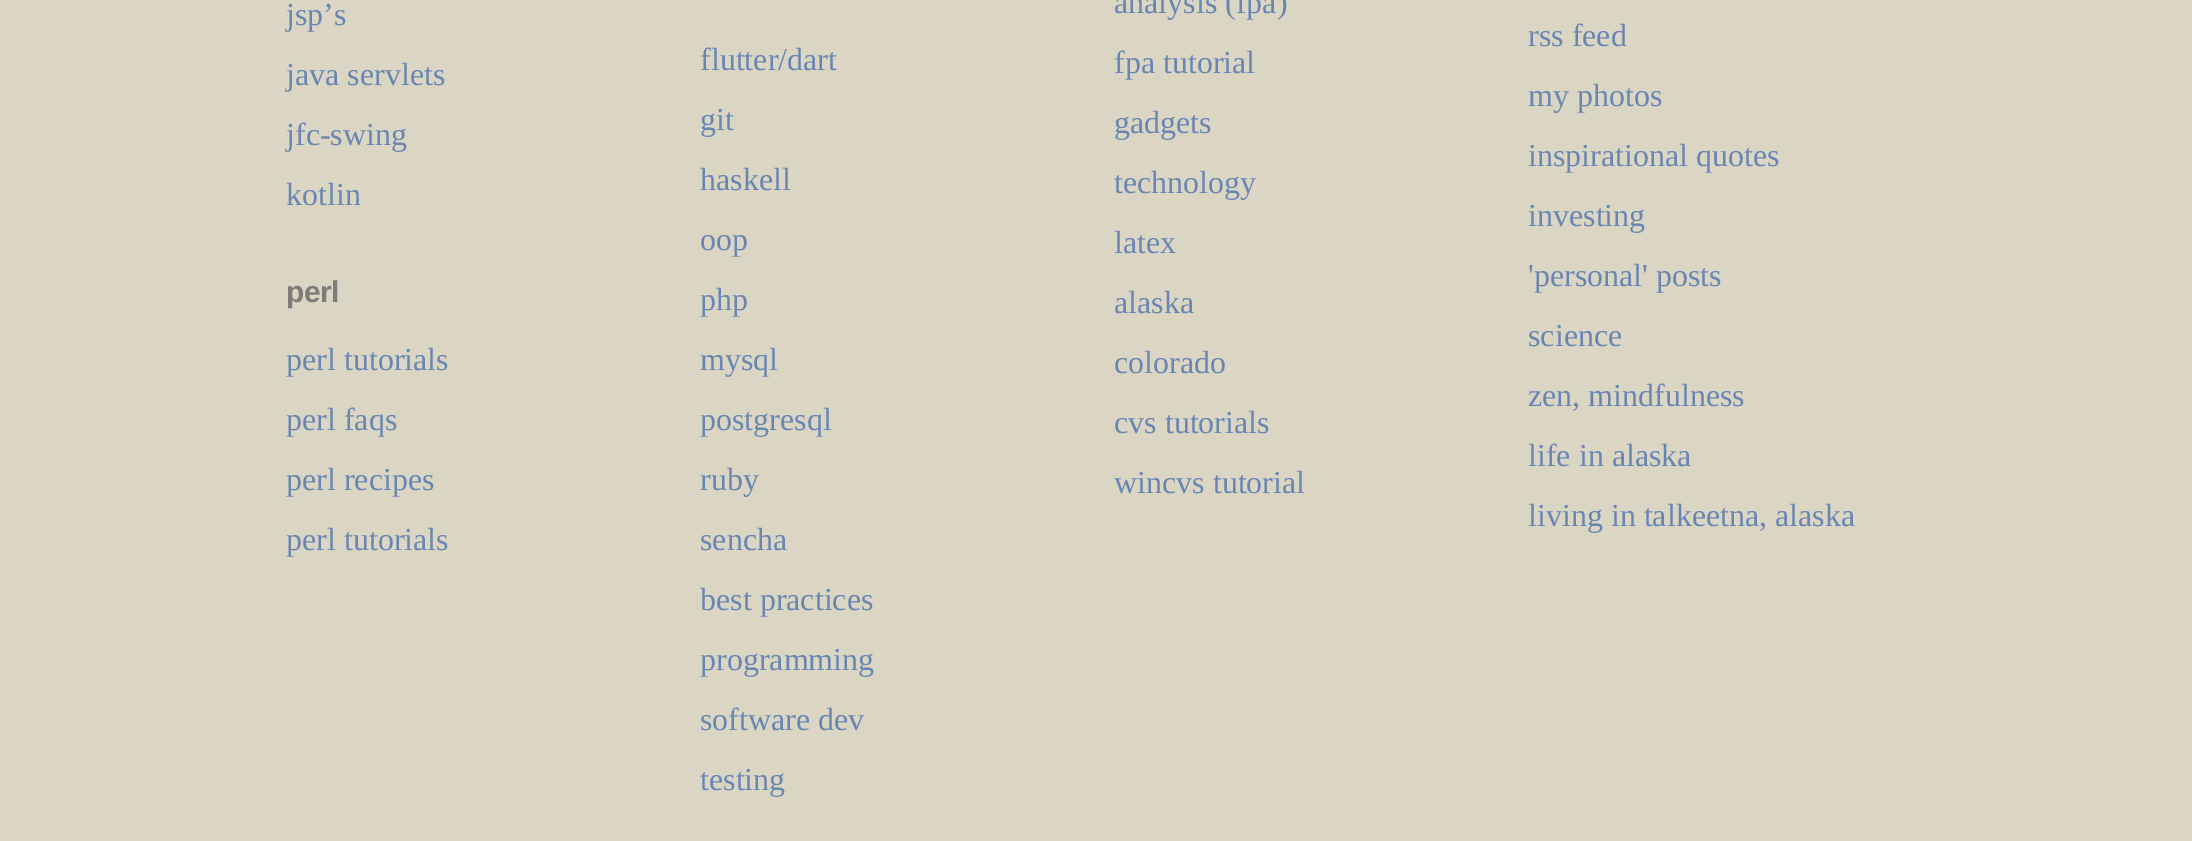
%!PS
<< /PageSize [2192 841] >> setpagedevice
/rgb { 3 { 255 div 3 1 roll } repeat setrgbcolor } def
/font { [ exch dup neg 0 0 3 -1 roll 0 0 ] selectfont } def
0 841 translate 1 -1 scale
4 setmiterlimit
219 214 196 rgb
0 0 2192 841 rectfill
/LiberationSerif-Regular 32 font
105 134 179 rgb
[
  [(jsp’s) 286 25]
  [(java servlets) 286 85]
  [(jfc-swing) 286 145]
  [(kotlin) 286 205]
] { aload pop moveto show } forall
/LiberationSans-Bold 30 font
124 124 123 rgb
286 302 moveto -0.5 0 (perl) ashow
/LiberationSerif-Regular 32 font
105 134 179 rgb
[
  [(perl tutorials) 286 370]
  [(perl faqs) 286 430]
  [(perl recipes) 286 490]
  [(perl tutorials) 286 550]
  [(flutter/dart) 700 70]
  [(git) 700 130]
  [(haskell) 700 190]
  [(oop) 700 250]
  [(php) 700 310]
  [(mysql) 700 370]
  [(postgresql) 700 430]
  [(ruby) 700 490]
  [(sencha) 700 550]
  [(best practices) 700 610]
  [(programming) 700 670]
  [(software dev) 700 730]
  [(testing) 700 790]
  [(analysis \(fpa\)) 1114 13]
  [(fpa tutorial) 1114 73]
  [(gadgets) 1114 133]
  [(technology) 1114 193]
  [(latex) 1114 253]
  [(alaska) 1114 313]
  [(colorado) 1114 373]
  [(cvs tutorials) 1114 433]
  [(wincvs tutorial) 1114 493]
  [(rss feed) 1528 46]
  [(my photos) 1528 106]
  [(inspirational quotes) 1528 166]
  [(investing) 1528 226]
  [('personal' posts) 1528 286]
  [(science) 1528 346]
  [(zen, mindfulness) 1528 406]
  [(life in alaska) 1528 466]
  [(living in talkeetna, alaska) 1528 526]
] { aload pop moveto show } forall
showpage
